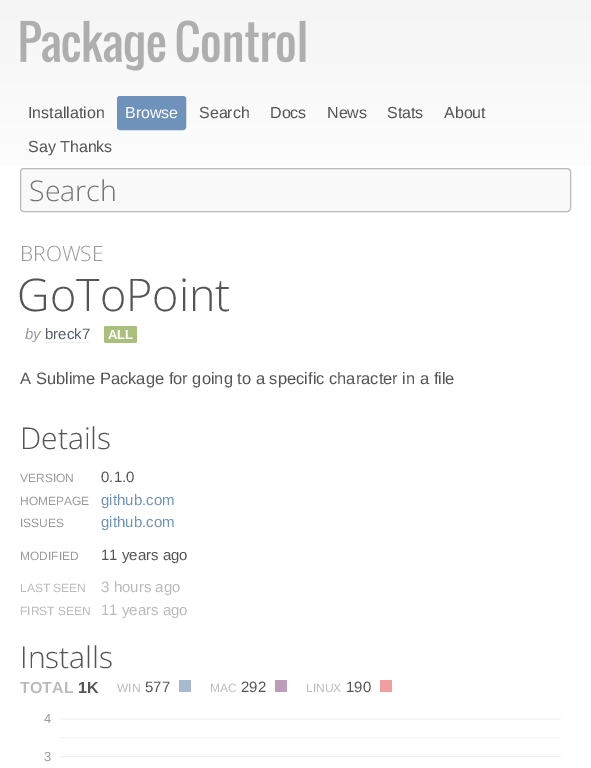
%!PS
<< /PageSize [591 768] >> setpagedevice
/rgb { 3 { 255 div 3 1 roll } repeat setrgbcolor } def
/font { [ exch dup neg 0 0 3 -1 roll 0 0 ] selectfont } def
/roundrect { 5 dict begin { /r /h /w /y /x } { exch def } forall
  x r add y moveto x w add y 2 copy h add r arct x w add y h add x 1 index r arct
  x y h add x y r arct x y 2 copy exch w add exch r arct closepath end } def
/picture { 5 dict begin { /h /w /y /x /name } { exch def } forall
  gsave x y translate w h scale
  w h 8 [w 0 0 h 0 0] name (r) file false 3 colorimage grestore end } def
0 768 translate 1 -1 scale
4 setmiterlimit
255 255 255 rgb
0 0 591 768 rectfill
gsave 0 0 moveto 591 0 lineto 591 166 lineto 0 166 lineto closepath clip newpath
<< /ShadingType 2 /ColorSpace /DeviceRGB /Coords [296 0 296 221] /Extend [true true] /Function << /FunctionType 2 /Domain [0 1] /C0 [0.961 0.961 0.961] /C1 [1 1 1] /N 1 >> >> shfill grestore
(img/1.rgb) 20 20 286 51 picture
111 146 186 rgb
117.5 96.5 68 33 2.5 roundrect gsave fill grestore
stroke
249 249 249 rgb
20.5 168.5 550 43 3.5 roundrect gsave fill grestore
187 187 187 rgb
stroke
238 238 238 rgb
45 342 45 1 rectfill
170 191 124 rgb
104 326 33 17 2 roundrect fill
[
  [179 680 12 12 168 186 207]
  [275 680 12 12 189 156 183]
  [380 680 12 12 239 159 159]
] { aload pop rgb rectfill } forall
(img/2.rgb) 60 718 501 39 picture
/LiberationSans-Regular 16 font
85 85 85 rgb
28 118 moveto (Installation) show
255 255 255 rgb
125 118 moveto (Browse) show
85 85 85 rgb
[
  [(Search) 199 118]
  [(Docs) 270 118]
  [(News) 327 118]
  [(Stats) 387 118]
  [(About) 444 118]
  [(Say Thanks) 28 152]
] { aload pop moveto show } forall
/OpenSans-Light 28.5 font
117 117 117 rgb
29 201 moveto (Search) show
/OpenSans-Light 21 font
153 153 153 rgb
20 261 moveto (BROWSE) show
/OpenSans-Light 45 font
85 85 85 rgb
17 311 moveto (GoToPoint) show
/LiberationSans-Italic 15 font
153 153 153 rgb
25 339 moveto (by) show
/LiberationSans-Regular 15 font
85 94 105 rgb
45 339 moveto (breck7) show
/LiberationSans-Bold 13 font
255 255 255 rgb
108 339 moveto (ALL) show
/LiberationSans-Regular 16.5 font
85 85 85 rgb
20 384 moveto (A Sublime Package for going to a specific character in a file) show
/OpenSans-Light 30 font
20 449 moveto (Details) show
/LiberationSans-Regular 12 font
153 153 153 rgb
20 482 moveto (VERSION) show
/LiberationSans-Regular 15 font
85 85 85 rgb
101 482 moveto (0.1.0) show
/LiberationSans-Regular 12 font
153 153 153 rgb
20 505 moveto (HOMEPAGE) show
/LiberationSans-Regular 15 font
111 146 186 rgb
101 505 moveto (github.com) show
/LiberationSans-Regular 12 font
153 153 153 rgb
20 527 moveto (ISSUES) show
/LiberationSans-Regular 15 font
111 146 186 rgb
101 527 moveto (github.com) show
/LiberationSans-Regular 12 font
153 153 153 rgb
20 560 moveto (MODIFIED) show
/LiberationSans-Regular 15 font
85 85 85 rgb
101 560 moveto (11 years ago) show
/LiberationSans-Regular 12 font
187 187 187 rgb
20 592 moveto (LAST SEEN) show
/LiberationSans-Regular 15 font
101 592 moveto (3 hours ago) show
/LiberationSans-Regular 12 font
20 615 moveto (FIRST SEEN) show
/LiberationSans-Regular 15 font
101 615 moveto (11 years ago) show
/OpenSans-Light 30 font
85 85 85 rgb
20 668 moveto (Installs) show
/LiberationSans-Bold 16 font
187 187 187 rgb
20 693 moveto (TOTAL) show
85 85 85 rgb
78 693 moveto (1K) show
/LiberationSans-Regular 12 font
187 187 187 rgb
117 692 moveto (WIN) show
/LiberationSans-Regular 15 font
85 85 85 rgb
145 692 moveto (577) show
/LiberationSans-Regular 12 font
187 187 187 rgb
210 692 moveto (MAC) show
/LiberationSans-Regular 15 font
85 85 85 rgb
241 692 moveto (292) show
/LiberationSans-Regular 12 font
187 187 187 rgb
306 692 moveto (LINUX) show
/LiberationSans-Regular 15 font
85 85 85 rgb
346 692 moveto (190) show
/LiberationSans-Regular 13 font
153 153 153 rgb
44 723 moveto (4) show
44 761 moveto (3) show
showpage
